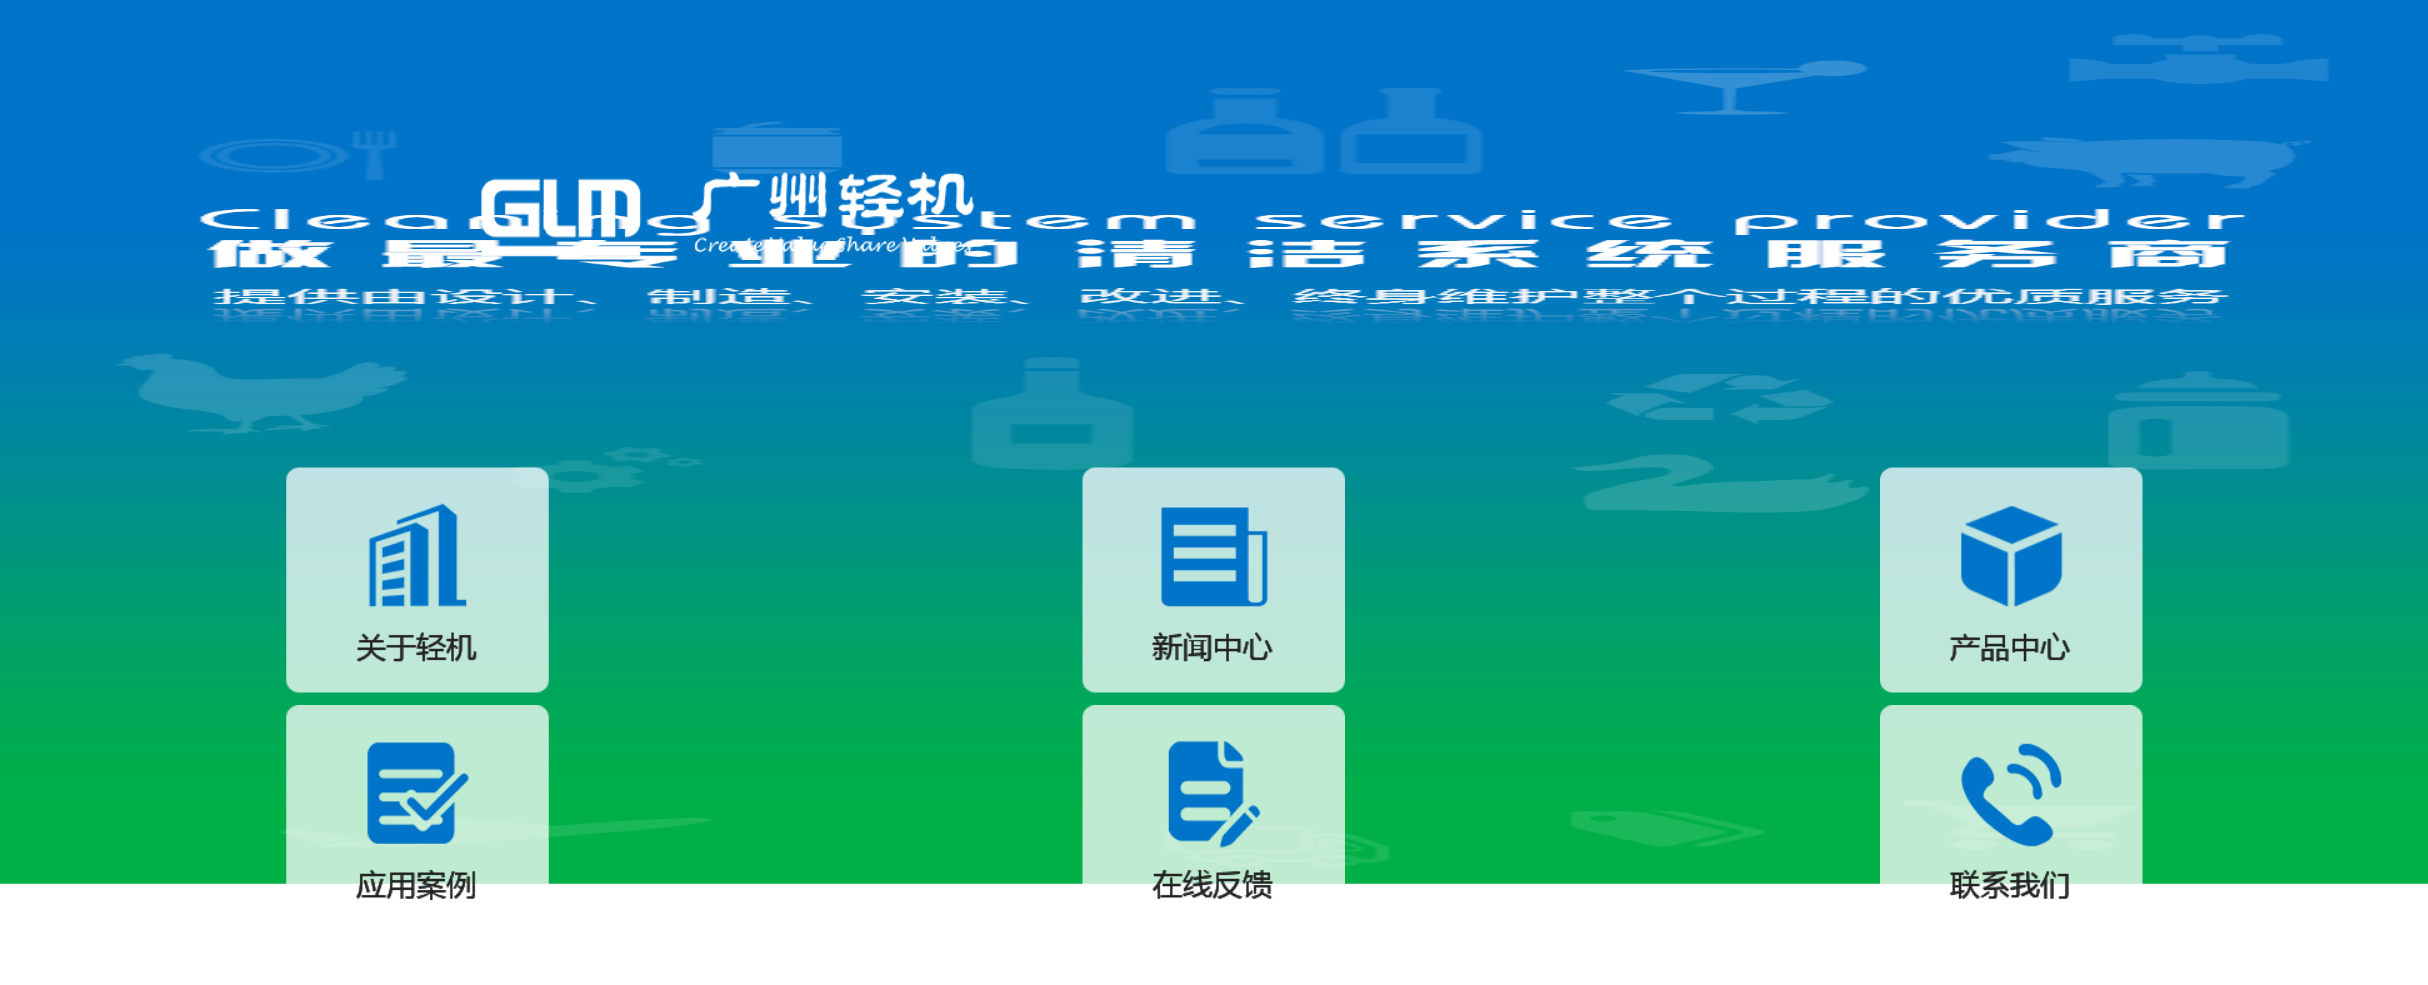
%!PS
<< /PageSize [2428 985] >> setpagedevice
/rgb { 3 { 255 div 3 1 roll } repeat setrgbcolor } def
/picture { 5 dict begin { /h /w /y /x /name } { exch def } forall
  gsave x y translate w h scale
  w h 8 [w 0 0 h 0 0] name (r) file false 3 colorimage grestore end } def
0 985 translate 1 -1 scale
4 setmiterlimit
255 255 255 rgb
0 0 2428 985 rectfill
(img/1.rgb) 0 0 2428 884 picture
(img/2.rgb) 481 171 494 86 picture
(img/3.rgb) 286 467 263 226 picture
(img/4.rgb) 1082 467 263 226 picture
(img/5.rgb) 1880 467 263 226 picture
(img/6.rgb) 286 705 263 196 picture
(img/7.rgb) 1082 705 263 194 picture
(img/8.rgb) 1880 705 263 194 picture
showpage
